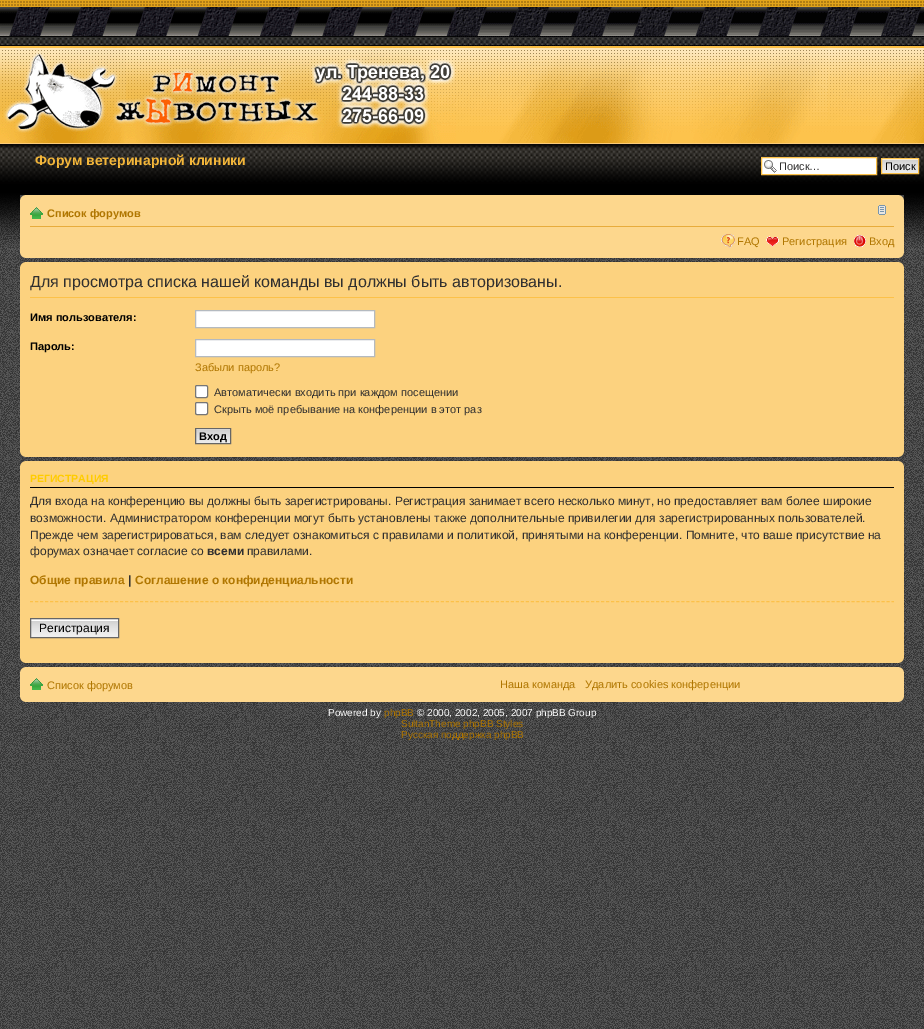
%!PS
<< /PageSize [924 1029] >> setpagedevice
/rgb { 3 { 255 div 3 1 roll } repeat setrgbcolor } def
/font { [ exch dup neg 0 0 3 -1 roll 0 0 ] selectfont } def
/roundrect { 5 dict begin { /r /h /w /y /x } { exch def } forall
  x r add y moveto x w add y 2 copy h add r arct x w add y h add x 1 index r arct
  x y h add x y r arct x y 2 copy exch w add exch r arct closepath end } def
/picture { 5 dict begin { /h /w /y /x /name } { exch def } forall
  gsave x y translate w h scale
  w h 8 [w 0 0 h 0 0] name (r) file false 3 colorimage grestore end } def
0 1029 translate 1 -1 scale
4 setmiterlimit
255 255 255 rgb
0 0 924 1029 rectfill
(img/1.rgb) 0 248 924 781 picture
(img/2.rgb) 0 0 456 143 picture
(img/3.rgb) 456 0 468 143 picture
(img/4.rgb) 0 143 924 41 picture
762 158 114 16 rectfill
(img/5.rgb) 764 160 13 13 picture
252 193 73 rgb
761.5 157.5 115 17 rectstroke
(img/6.rgb) 882 159 36 14 picture
881.5 158.5 37 15 rectstroke
(img/7.rgb) 0 184 924 64 picture
253 215 141 rgb
20 195 884 63 rectfill
(img/8.rgb) 20 195 5 5 picture
(img/9.rgb) 899 195 5 5 picture
232 172 59 rgb
30 226 864 1 rectfill
(img/10.rgb) 30 207 13 12 picture
(img/11.rgb) 878 205 8 10 picture
(img/12.rgb) 721 234 14 14 picture
(img/13.rgb) 766 236 13 11 picture
(img/14.rgb) 854 235 12 12 picture
(img/15.rgb) 20 253 5 5 picture
(img/16.rgb) 899 253 5 5 picture
252 210 127 rgb
20 262 884 195 rectfill
(img/17.rgb) 20 262 5 5 picture
(img/18.rgb) 899 262 5 5 picture
252 193 73 rgb
30 297 864 1 rectfill
255 255 255 rgb
195.5 310.5 moveto 374.5 310.5 lineto 374.5 327.5 lineto 195.5 327.5 lineto closepath gsave fill grestore
180 186 192 rgb
stroke
255 255 255 rgb
195.5 339.5 moveto 374.5 339.5 lineto 374.5 356.5 lineto 195.5 356.5 lineto closepath gsave fill grestore
180 186 192 rgb
stroke
255 255 255 rgb
195.5 385.5 12 12 1.5 roundrect gsave fill grestore
118 118 118 rgb
stroke
255 255 255 rgb
195.5 402.5 12 12 1.5 roundrect gsave fill grestore
118 118 118 rgb
stroke
(img/19.rgb) 196 429 34 14 picture
102 102 102 rgb
195.5 428.5 35 15 rectstroke
(img/20.rgb) 20 452 5 5 picture
(img/21.rgb) 899 452 5 5 picture
252 210 127 rgb
20 461 884 202 rectfill
(img/17.rgb) 20 461 5 5 picture
(img/18.rgb) 899 461 5 5 picture
0 0 0 rgb
30 487 864 1 rectfill
252 193 73 rgb
[3 2.01] 0 setdash
30 601.5 moveto 894 601.5 lineto stroke
(img/22.rgb) 31 620 87 17 picture
250 250 250 rgb
31 619 87 1 rectfill
102 102 102 rgb
[] 0 setdash
30.5 618.5 88 19 rectstroke
(img/20.rgb) 20 658 5 5 picture
(img/21.rgb) 899 658 5 5 picture
253 215 141 rgb
20 667 884 35 rectfill
(img/8.rgb) 20 667 5 5 picture
(img/9.rgb) 899 667 5 5 picture
(img/10.rgb) 30 678 13 12 picture
(img/15.rgb) 20 697 5 5 picture
(img/16.rgb) 899 697 5 5 picture
/LiberationSans-Bold 14 font
243 182 58 rgb
35 165 moveto (Форум ветеринарной клиники) show
/LiberationSans-Regular 11 font
48 47 47 rgb
779 170 moveto (Поиск…) show
0 0 0 rgb
885 170 moveto (Поиск) show
/LiberationSans-Bold 11 font
176 118 0 rgb
47 217 moveto (Список форумов) show
/LiberationSans-Regular 11 font
[
  [(FAQ) 737 245]
  [(Регистрация) 782 245]
  [(Вход) 869 245]
] { aload pop moveto show } forall
/LiberationSans-Regular 16 font
48 47 47 rgb
30 287 moveto (Для просмотра списка нашей команды вы должны быть авторизованы.) show
/LiberationSans-Bold 11 font
0 0 0 rgb
30 321 moveto (Имя пользователя:) show
30 350 moveto (Пароль:) show
/LiberationSans-Regular 11 font
176 118 0 rgb
195 371 moveto (Забыли пароль?) show
48 47 47 rgb
214 396 moveto (Автоматически входить при каждом посещении) show
214 413 moveto (Скрыть моё пребывание на конференции в этот раз) show
/LiberationSans-Bold 11 font
0 0 0 rgb
199 440 moveto (Вход) show
/LiberationSans-Bold 10.5 font
255 204 0 rgb
30 482 moveto (РЕГИСТРАЦИЯ) show
/LiberationSans-Regular 12 font
48 47 47 rgb
[
  [(Для входа на конференцию вы должны быть зарегистрированы. Регистрация занимает всего несколько минут, но предоставляет вам более широкие) 30 505]
  [(возможности. Администратором конференции могут быть установлены также дополнительные привилегии для зарегистрированных пользователей.) 30 522]
  [(Прежде чем зарегистрироваться, вам следует ознакомиться с правилами и политикой, принятыми на конференции. Помните, что ваше присутствие на) 30 539]
  [(форумах означает согласие со) 30 555]
] { aload pop moveto show } forall
/LiberationSans-Bold 12 font
207 555 moveto (всеми) show
/LiberationSans-Regular 12 font
247 555 moveto (правилами.) show
/LiberationSans-Bold 12 font
176 118 0 rgb
30 584 moveto (Общие правила) show
48 47 47 rgb
128 584 moveto (|) show
176 118 0 rgb
135 584 moveto (Соглашение о конфиденциальности) show
/LiberationSans-Regular 12 font
0 0 0 rgb
39 632 moveto (Регистрация) show
/LiberationSans-Regular 11 font
176 118 0 rgb
[
  [(Список форумов) 47 689]
  [(Наша команда) 500 688]
  [(Удалить cookies конференции) 585 688]
] { aload pop moveto show } forall
/LiberationSans-Regular 10 font
255 255 255 rgb
328 716 moveto (Powered by) show
176 118 0 rgb
384 716 moveto (phpBB) show
255 255 255 rgb
417 716 moveto (© 2000, 2002, 2005, 2007 phpBB Group) show
176 118 0 rgb
401 727 moveto (SultanTheme phpBB Styles) show
401 738 moveto (Русская поддержка phpBB) show
showpage
